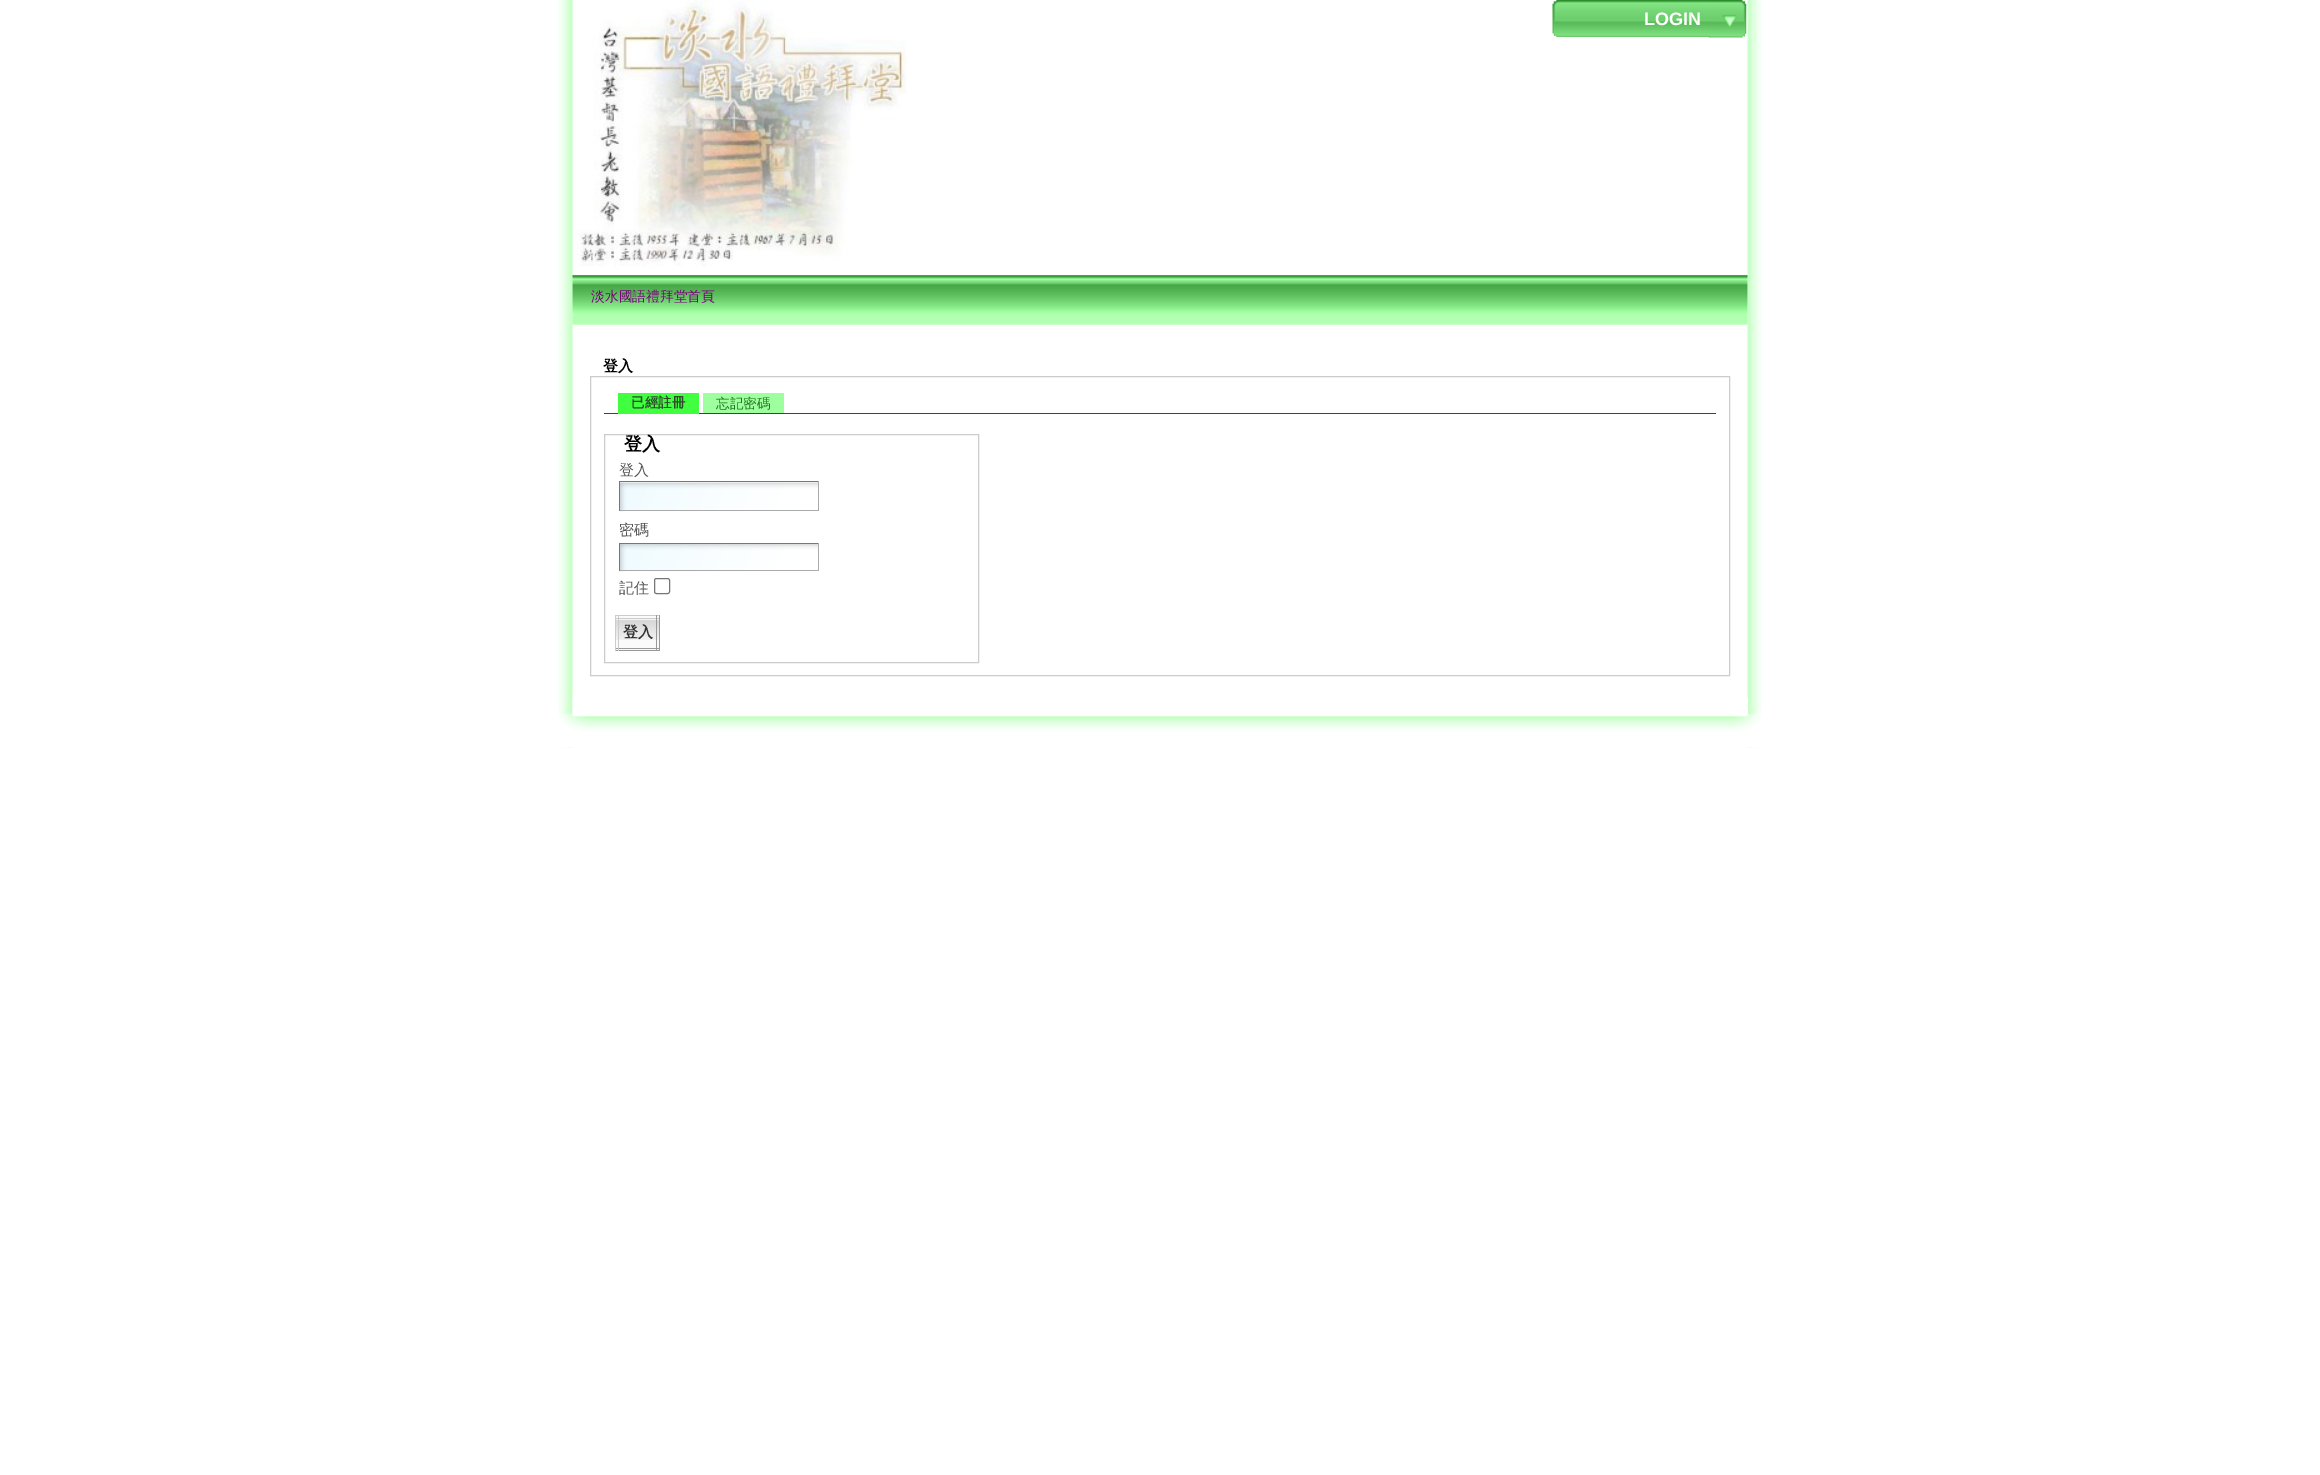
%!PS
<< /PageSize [2320 1475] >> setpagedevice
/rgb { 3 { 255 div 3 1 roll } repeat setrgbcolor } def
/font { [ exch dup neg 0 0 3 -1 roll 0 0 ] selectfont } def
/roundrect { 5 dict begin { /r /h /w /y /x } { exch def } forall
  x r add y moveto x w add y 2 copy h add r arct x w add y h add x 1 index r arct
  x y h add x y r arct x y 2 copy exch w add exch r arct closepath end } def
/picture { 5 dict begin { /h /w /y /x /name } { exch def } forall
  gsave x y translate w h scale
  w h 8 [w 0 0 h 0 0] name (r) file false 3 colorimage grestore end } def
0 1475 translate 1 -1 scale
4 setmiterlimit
255 255 255 rgb
0 0 2320 1475 rectfill
(img/1.rgb) 558 0 1204 748 picture
(img/2.rgb) 575 0 332 267 picture
(img/3.rgb) 1708 0 39 38 picture
(img/4.rgb) 1552 0 158 38 picture
(img/5.rgb) 572 275 1176 50 picture
204 204 204 rgb
590.5 376.5 1139 299 rectstroke
[
  [604 413 1112 1 1 86 137]
  [618 393 81 21 63 255 63]
  [703 393 81 20 157 255 157]
] { aload pop rgb rectfill } forall
204 204 204 rgb
604.5 434.5 374 228 rectstroke
(img/6.rgb) 620 482 199 30 picture
[
  [619 481 200 1 119 119 119]
  [818 481 1 30 170 170 170]
  [619 510 200 1 170 170 170]
  [619 481 1 30 119 119 119]
] { aload pop rgb rectfill } forall
(img/7.rgb) 620 544 199 28 picture
[
  [619 543 200 1 119 119 119]
  [818 543 1 28 170 170 170]
  [619 570 200 1 170 170 170]
  [619 543 1 28 119 119 119]
] { aload pop rgb rectfill } forall
118 118 118 rgb
654.5 578.5 15 15 2 roundrect stroke
250 250 250 rgb
616 616 43 34 rectfill
(img/8.rgb) 616 619 43 21 picture
[
  [615 615 45 1 204 204 204]
  [615 618 45 1 204 204 204]
  [656 615 1 36 153 153 153]
  [659 615 1 36 153 153 153]
  [615 648 45 1 153 153 153]
  [615 650 45 1 153 153 153]
  [615 615 1 36 204 204 204]
  [618 615 1 36 204 204 204]
  [1747 698 1 16 255 255 255]
] { aload pop rgb rectfill } forall
(img/9.rgb) 572 697 1 17 picture
(img/10.rgb) 558 713 1204 35 picture
/LiberationSans-Bold 18 font
1644 25 moveto (LOGIN) show
/WenQuanYiZenHei-Medium 13.75 font
122 5 123 rgb
591 301 moveto (淡水國語禮拜堂首頁) show
/WenQuanYiZenHei-Bold 15 font
0 0 0 rgb
603 371 moveto (登入) show
/WenQuanYiZenHei-Bold 13.5 font
46 73 44 rgb
631 407 moveto (已經註冊) show
/WenQuanYiZenHei-Medium 13.5 font
34 117 33 rgb
716 408 moveto (忘記密碼) show
/WenQuanYiZenHei-Bold 18 font
0 0 0 rgb
624 450 moveto (登入) show
/WenQuanYiZenHei-Medium 15 font
86 86 85 rgb
[
  [(登入) 619 475]
  [(密碼) 619 535]
  [(記住) 619 593]
] { aload pop moveto show } forall
/WenQuanYiZenHei-Bold 15 font
51 51 51 rgb
623 637 moveto (登入) show
showpage
